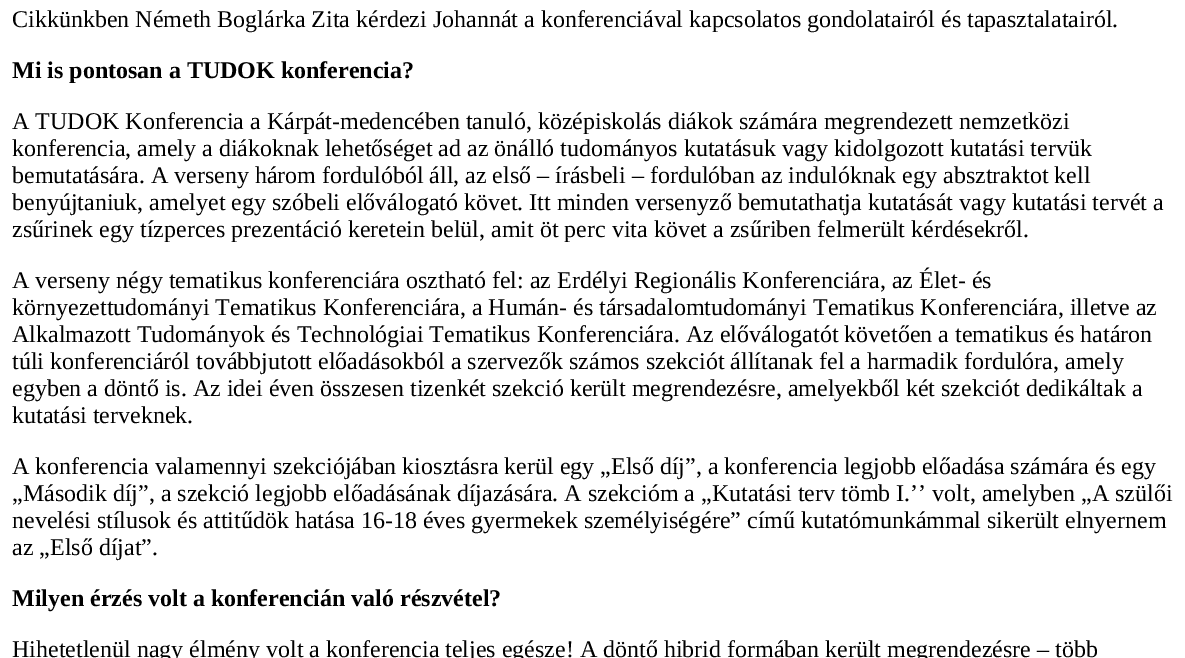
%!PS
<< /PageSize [1185 658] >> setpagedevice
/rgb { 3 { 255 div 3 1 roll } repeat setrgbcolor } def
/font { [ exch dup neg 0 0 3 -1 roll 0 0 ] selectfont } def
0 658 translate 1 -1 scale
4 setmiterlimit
255 255 255 rgb
0 0 1185 658 rectfill
/LiberationSerif-Regular 24 font
0 0 0 rgb
12 27 moveto (Cikkünkben Németh Boglárka Zita kérdezi Johannát a konferenciával kapcsolatos gondolatairól és tapasztalatairól.) show
/LiberationSerif-Bold 24 font
12 78 moveto (Mi is pontosan a TUDOK konferencia?) show
/LiberationSerif-Regular 24 font
[
  [(A TUDOK Konferencia a Kárpát-medencében tanuló, középiskolás diákok számára megrendezett nemzetközi) 12 129]
  [(konferencia, amely a diákoknak lehetőséget ad az önálló tudományos kutatásuk vagy kidolgozott kutatási tervük) 12 156]
  [(bemutatására. A verseny három fordulóból áll, az első – írásbeli – fordulóban az indulóknak egy absztraktot kell) 12 183]
  [(benyújtaniuk, amelyet egy szóbeli előválogató követ. Itt minden versenyző bemutathatja kutatását vagy kutatási tervét a) 12 210]
  [(zsűrinek egy tízperces prezentáció keretein belül, amit öt perc vita követ a zsűriben felmerült kérdésekről.) 12 237]
  [(A verseny négy tematikus konferenciára osztható fel: az Erdélyi Regionális Konferenciára, az Élet- és) 12 288]
  [(környezettudományi Tematikus Konferenciára, a Humán- és társadalomtudományi Tematikus Konferenciára, illetve az) 12 315]
  [(Alkalmazott Tudományok és Technológiai Tematikus Konferenciára. Az előválogatót követően a tematikus és határon) 12 342]
  [(túli konferenciáról továbbjutott előadásokból a szervezők számos szekciót állítanak fel a harmadik fordulóra, amely) 12 369]
  [(egyben a döntő is. Az idei éven összesen tizenkét szekció került megrendezésre, amelyekből két szekciót dedikáltak a) 12 396]
  [(kutatási terveknek.) 12 423]
  [(A konferencia valamennyi szekciójában kiosztásra kerül egy „Első díj”, a konferencia legjobb előadása számára és egy) 12 474]
  [(„Második díj”, a szekció legjobb előadásának díjazására. A szekcióm a „Kutatási terv tömb I.’’ volt, amelyben „A szülői) 12 501]
  [(nevelési stílusok és attitűdök hatása 16-18 éves gyermekek személyiségére” című kutatómunkámmal sikerült elnyernem) 12 528]
  [(az „Első díjat”.) 12 555]
] { aload pop moveto show } forall
/LiberationSerif-Bold 24 font
12 606 moveto (Milyen érzés volt a konferencián való részvétel?) show
/LiberationSerif-Regular 24 font
12 657 moveto (Hihetetlenül nagy élmény volt a konferencia teljes egésze! A döntő hibrid formában került megrendezésre – több) show
showpage
